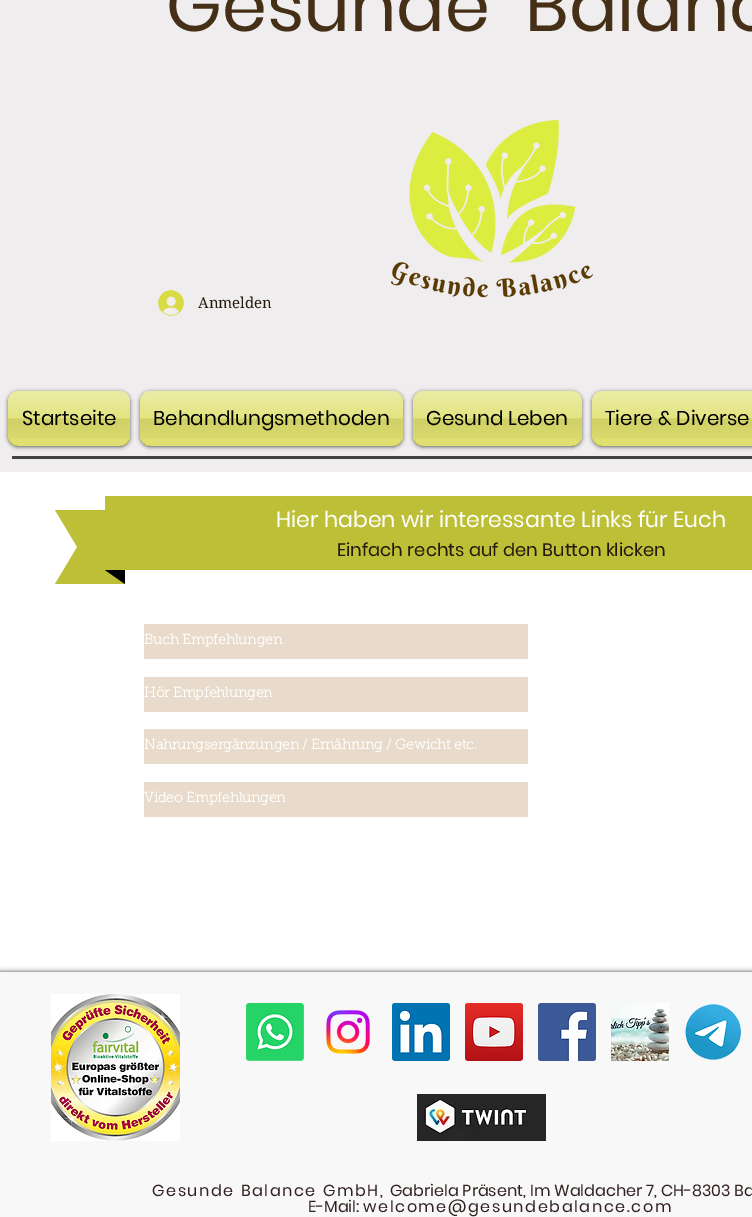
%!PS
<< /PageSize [752 1217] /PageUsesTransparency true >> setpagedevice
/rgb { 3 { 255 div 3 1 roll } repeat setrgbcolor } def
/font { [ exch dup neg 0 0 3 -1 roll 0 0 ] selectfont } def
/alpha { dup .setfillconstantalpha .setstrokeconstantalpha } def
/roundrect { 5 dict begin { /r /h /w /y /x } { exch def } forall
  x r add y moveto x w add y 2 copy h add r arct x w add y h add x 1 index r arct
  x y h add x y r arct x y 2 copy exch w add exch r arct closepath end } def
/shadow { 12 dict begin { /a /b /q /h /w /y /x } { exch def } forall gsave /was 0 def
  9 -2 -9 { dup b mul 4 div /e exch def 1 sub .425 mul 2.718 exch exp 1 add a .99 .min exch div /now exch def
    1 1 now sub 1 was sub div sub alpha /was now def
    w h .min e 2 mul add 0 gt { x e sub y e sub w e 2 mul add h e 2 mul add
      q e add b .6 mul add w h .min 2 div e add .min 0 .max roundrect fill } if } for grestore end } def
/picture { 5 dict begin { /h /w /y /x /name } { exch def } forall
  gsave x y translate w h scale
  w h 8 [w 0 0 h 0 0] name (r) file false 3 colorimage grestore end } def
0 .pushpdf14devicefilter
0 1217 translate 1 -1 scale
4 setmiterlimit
240 237 238 rgb
0 0 752 1217 rectfill
(img/1.rgb) 391 120 202 178 picture
(img/2.rgb) 158 290 26 26 picture
gsave
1 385 moveto 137 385 lineto 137 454 lineto 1 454 lineto closepath 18 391 moveto 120 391 lineto 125.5 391 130 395.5 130 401 curveto 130 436 lineto 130 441.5 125.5 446 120 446 curveto 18 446 lineto 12.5 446 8 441.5 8 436 curveto 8 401 lineto 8 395.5 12.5 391 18 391 curveto closepath eoclip newpath
0 0 0 rgb
8 392 122 55 10 2 0.6 shadow
grestore
0.75 alpha
217 219 68 rgb
8 391 122 55 10 roundrect fill
1 alpha
(img/3.rgb) 8 391 122 48 picture
gsave
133 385 moveto 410 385 lineto 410 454 lineto 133 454 lineto closepath 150 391 moveto 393 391 lineto 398.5 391 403 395.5 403 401 curveto 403 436 lineto 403 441.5 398.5 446 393 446 curveto 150 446 lineto 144.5 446 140 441.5 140 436 curveto 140 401 lineto 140 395.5 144.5 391 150 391 curveto closepath eoclip newpath
0 0 0 rgb
140 392 263 55 10 2 0.6 shadow
grestore
0.75 alpha
140 391 263 55 10 roundrect fill
1 alpha
(img/4.rgb) 140 391 263 48 picture
gsave
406 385 moveto 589 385 lineto 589 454 lineto 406 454 lineto closepath 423 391 moveto 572 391 lineto 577.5 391 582 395.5 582 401 curveto 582 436 lineto 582 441.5 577.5 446 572 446 curveto 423 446 lineto 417.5 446 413 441.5 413 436 curveto 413 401 lineto 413 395.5 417.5 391 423 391 curveto closepath eoclip newpath
0 0 0 rgb
413 392 169 55 10 2 0.6 shadow
grestore
0.75 alpha
413 391 169 55 10 roundrect fill
1 alpha
(img/5.rgb) 413 391 169 48 picture
gsave
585 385 moveto 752 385 lineto 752 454 lineto 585 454 lineto closepath 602 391 moveto 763 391 lineto 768.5 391 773 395.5 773 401 curveto 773 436 lineto 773 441.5 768.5 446 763 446 curveto 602 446 lineto 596.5 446 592 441.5 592 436 curveto 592 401 lineto 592 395.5 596.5 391 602 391 curveto closepath eoclip newpath
0 0 0 rgb
592 392 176 55 10 2 0.6 shadow
grestore
0.75 alpha
592 391 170 55 10 roundrect fill
1 alpha
(img/6.rgb) 592 391 160 48 picture
66 66 66 rgb
12 456 740 3 rectfill
255 255 255 rgb
0 472 752 500 rectfill
gsave
55 510 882 37 rectclip
189 191 55 rgb
55 510 moveto 125 510 lineto 125 610 lineto 115 610 lineto closepath fill
grestore
gsave
55 547 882 37 rectclip
189 191 55 rgb
125 584 moveto 55 584 lineto 115 484 lineto 125 484 lineto closepath fill
grestore
189 191 55 rgb
105 496 647 74 rectfill
0 0 0 rgb
125 570 moveto 125 584 lineto 105 570 lineto closepath fill
[
  [144 624 384 35 233 219 203]
  [144 677 384 35 233 219 203]
  [144 729 384 35 233 219 203]
  [144 782 384 35 233 219 203]
] { aload pop rgb rectfill } forall
0 0 0 rgb
0 972 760 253 0 2.5 0.7 shadow
249 248 248 rgb
0 972 752 245 rectfill
(img/7.rgb) 51 994 129 147 picture
(img/8.rgb) 246 1003 58 58 picture
(img/9.rgb) 326 1010 44 44 picture
(img/10.rgb) 392 1003 58 58 picture
(img/11.rgb) 465 1003 58 58 picture
(img/12.rgb) 538 1003 58 58 picture
(img/13.rgb) 611 1003 58 58 picture
(img/14.rgb) 685 1004 57 56 picture
(img/15.rgb) 417 1094 129 47 picture
/Poppins-Regular 72 font
69 48 23 rgb
166 31 moveto (Gesunde  Balanc) show
/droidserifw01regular-Regular 15 font
34 24 12 rgb
198 308 moveto (Anmelden) show
/Poppins-Regular 20 font
0 0 0 rgb
[
  [(Startseite) 22 425]
  [(Behandlungsmethoden) 153 425]
  [(Gesund Leben) 426 425]
  [(Tiere & Diverse) 605 425]
] { aload pop moveto show } forall
/Poppins-Regular 22 font
255 255 255 rgb
276 527 moveto (Hier haben wir interessante Links für Euch) show
/Poppins-Regular 18 font
34 24 12 rgb
337 556 moveto (Einfach rechts auf den Button klicken) show
/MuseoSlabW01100-Bold 14 font
255 255 255 rgb
[
  [(Buch Empfehlungen) 144 644]
  [(Hör Empfehlungen) 144 697]
  [(Nahrungsergänzungen / Ernährung / Gewicht etc.) 144 749]
  [(Video Empfehlungen) 144 802]
] { aload pop moveto show } forall
/Poppins-Regular 16 font
50 33 33 rgb
152 1196 moveto 1.6 0 (Gesunde Balance GmbH,) ashow
390 1196 moveto (Gabriela Präsent, Im Waldacher 7, CH-8303 Ba) show
308 1212 moveto (E-Mail:) show
363 1212 moveto 1.6 0 (welcome@gesundebalance.com) ashow
.poppdf14devicefilter showpage
